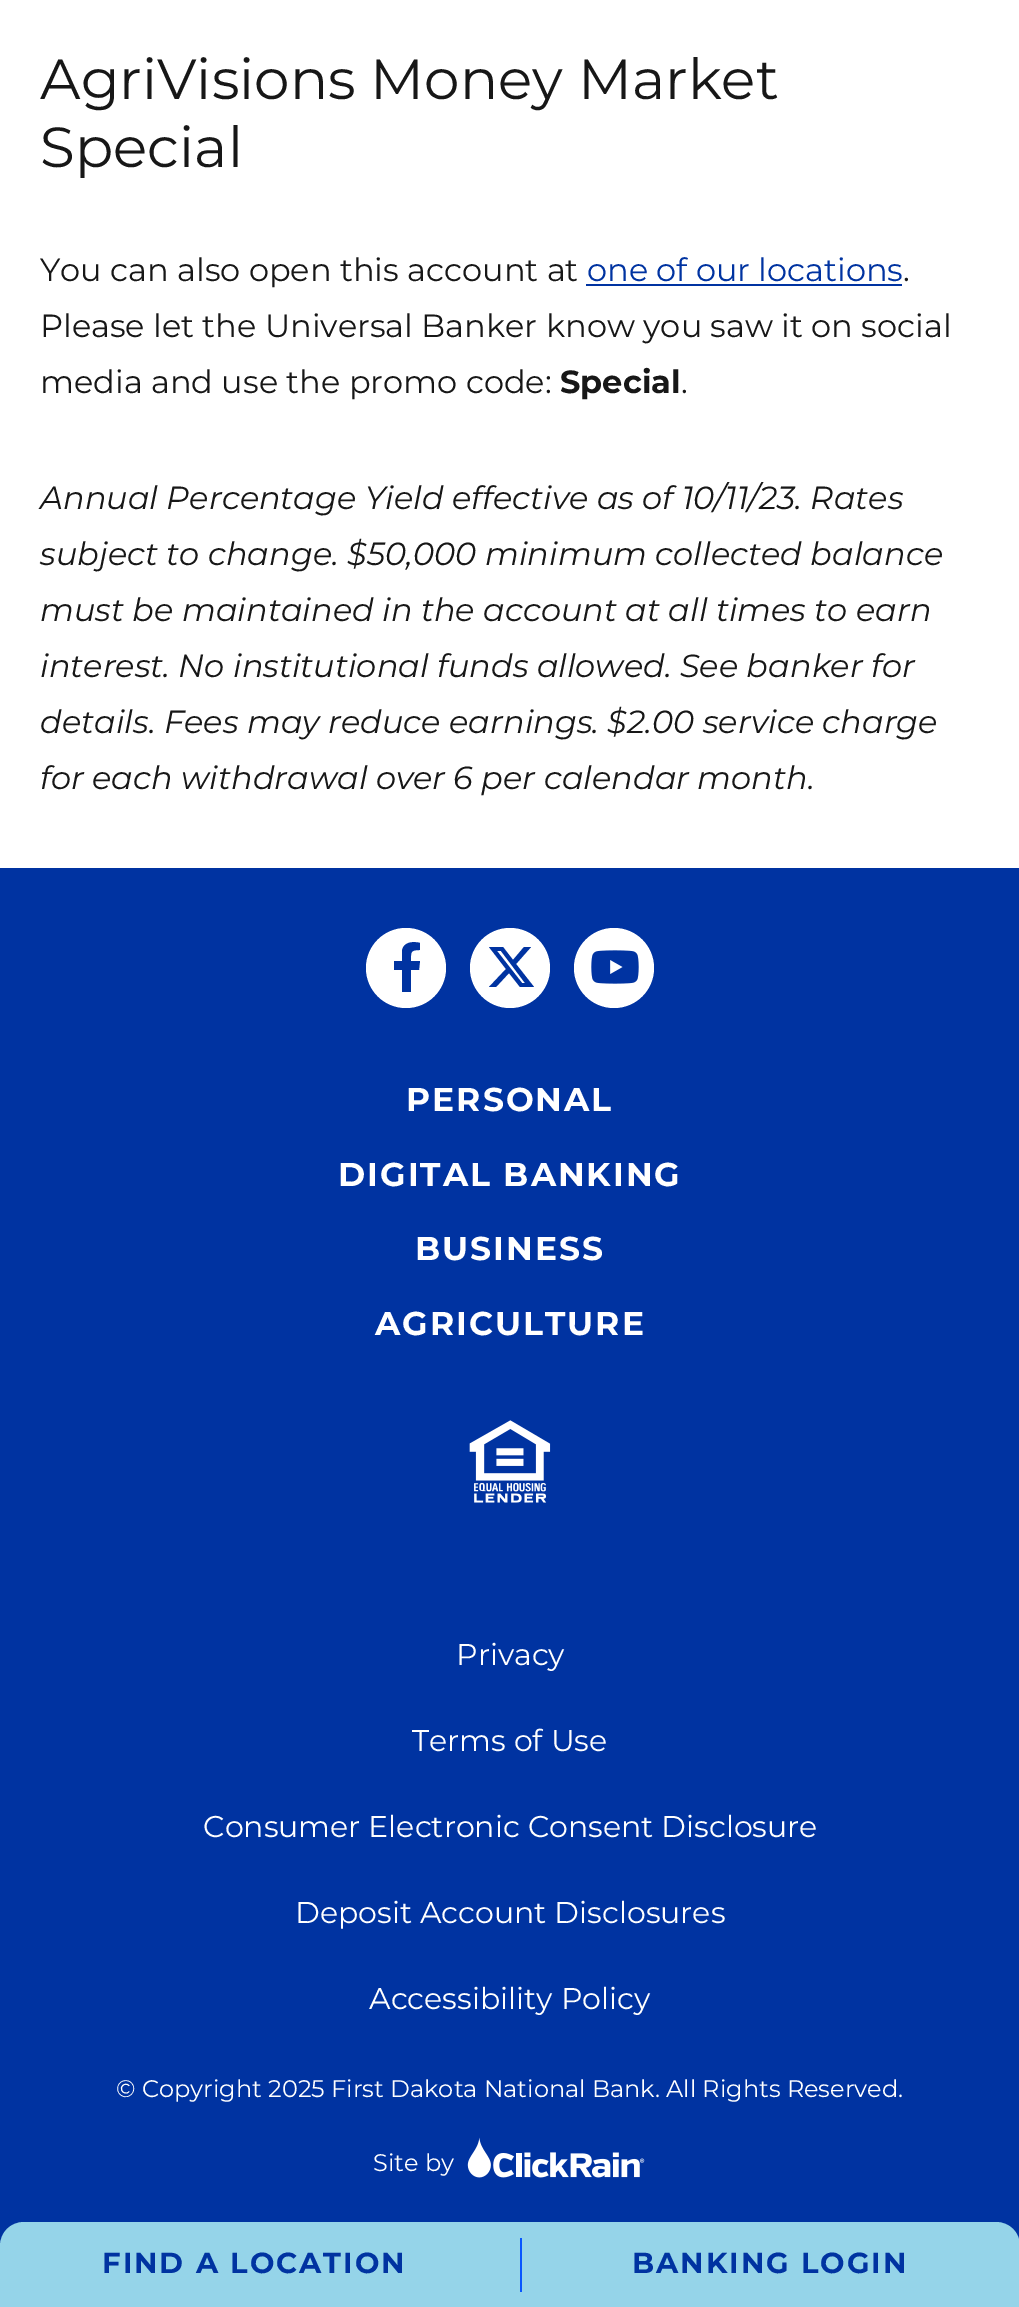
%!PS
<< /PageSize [1019 2307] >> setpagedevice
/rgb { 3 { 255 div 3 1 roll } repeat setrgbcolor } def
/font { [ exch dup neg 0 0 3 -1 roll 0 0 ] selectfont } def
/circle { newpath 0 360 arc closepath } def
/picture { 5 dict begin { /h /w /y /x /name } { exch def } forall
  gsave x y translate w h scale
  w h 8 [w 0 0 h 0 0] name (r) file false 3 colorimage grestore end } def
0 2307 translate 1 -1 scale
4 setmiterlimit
255 255 255 rgb
0 0 1019 2307 rectfill
0 51 161 rgb
586 284 316 2 rectfill
0 868 1019 1378 rectfill
255 255 255 rgb
406 968 40 circle fill
0 51 161 rgb
419 970 moveto 420 961 lineto 411 961 lineto 411 952 410 950 420 950 curveto 420 943 lineto 413 941 403 942 402 951 curveto 402 961 lineto 394 961 lineto 394 970 lineto 402 970 lineto 402 992 lineto 411 992 lineto 411 970 lineto closepath fill
255 255 255 rgb
510 968 40 circle fill
0 51 161 rgb
524 947 moveto 531 947 lineto 516 964 lineto 534 987 lineto 520 987 lineto 509 973 lineto 496 987 lineto 489 987 lineto 506 969 lineto 489 947 lineto 503 947 lineto 513 960 lineto closepath 522 983 moveto 525 983 lineto 501 951 lineto 497 951 lineto closepath fill
255 255 255 rgb
614 968 40 circle fill
(img/1.rgb) 591 950 48 34 picture
(img/2.rgb) 469 1420 82 83 picture
(img/3.rgb) 467 2137 178 41 picture
149 212 233 rgb
24 2222 moveto 996 2222 lineto 1009.5 2222 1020 2232.5 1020 2246 curveto 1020 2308 lineto 0 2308 lineto 0 2246 lineto 0 2232.5 10.5 2222 24 2222 curveto closepath fill
8 86 255 rgb
520 2238 2 54 rectfill
/Montserrat-Regular 56.5 font
23 23 23 rgb
40 99 moveto (AgriVisions Money Market) show
40 167 moveto (Special) show
/Montserrat-Regular 32 font
40 281 moveto (You can also open this account at) show
0 51 161 rgb
587 281 moveto (one of our locations) show
23 23 23 rgb
[
  [(.) 903 281]
  [(Please let the Universal Banker know you saw it on social) 40 337]
  [(media and use the promo code:) 40 393]
] { aload pop moveto show } forall
/Montserrat-Bold 32 font
560 393 moveto (Special) show
/Montserrat-Regular 32 font
681 393 moveto (.) show
/Montserrat-Italic 32 font
[
  [(Annual Percentage Yield effective as of 10/11/23. Rates) 40 509]
  [(subject to change. $50,000 minimum collected balance) 40 565]
  [(must be maintained in the account at all times to earn) 40 621]
  [(interest. No institutional funds allowed. See banker for) 40 677]
  [(details. Fees may reduce earnings. $2.00 service charge) 40 733]
  [(for each withdrawal over 6 per calendar month.) 40 789]
] { aload pop moveto show } forall
/Montserrat-Bold 33 font
255 255 255 rgb
406 1111 moveto 2 0 (PERSONAL) ashow
338 1186 moveto 2 0 (DIGITAL BANKING) ashow
415 1260 moveto 2 0 (BUSINESS) ashow
375 1335 moveto 2 0 (AGRICULTURE) ashow
/Montserrat-Regular 30 font
[
  [(Privacy) 456 1665]
  [(Terms of Use) 412 1751]
  [(Consumer Electronic Consent Disclosure) 203 1837]
  [(Deposit Account Disclosures) 295 1923]
  [(Accessibility Policy) 369 2009]
] { aload pop moveto show } forall
/Montserrat-Regular 24 font
116 2097 moveto (© Copyright 2025 First Dakota National Bank. All Rights Reserved.) show
373 2171 moveto (Site by) show
/Montserrat-Bold 29 font
0 51 161 rgb
102 2273 moveto 2 0 (FIND A LOCATION) ashow
632 2273 moveto 2 0 (BANKING LOGIN) ashow
showpage
